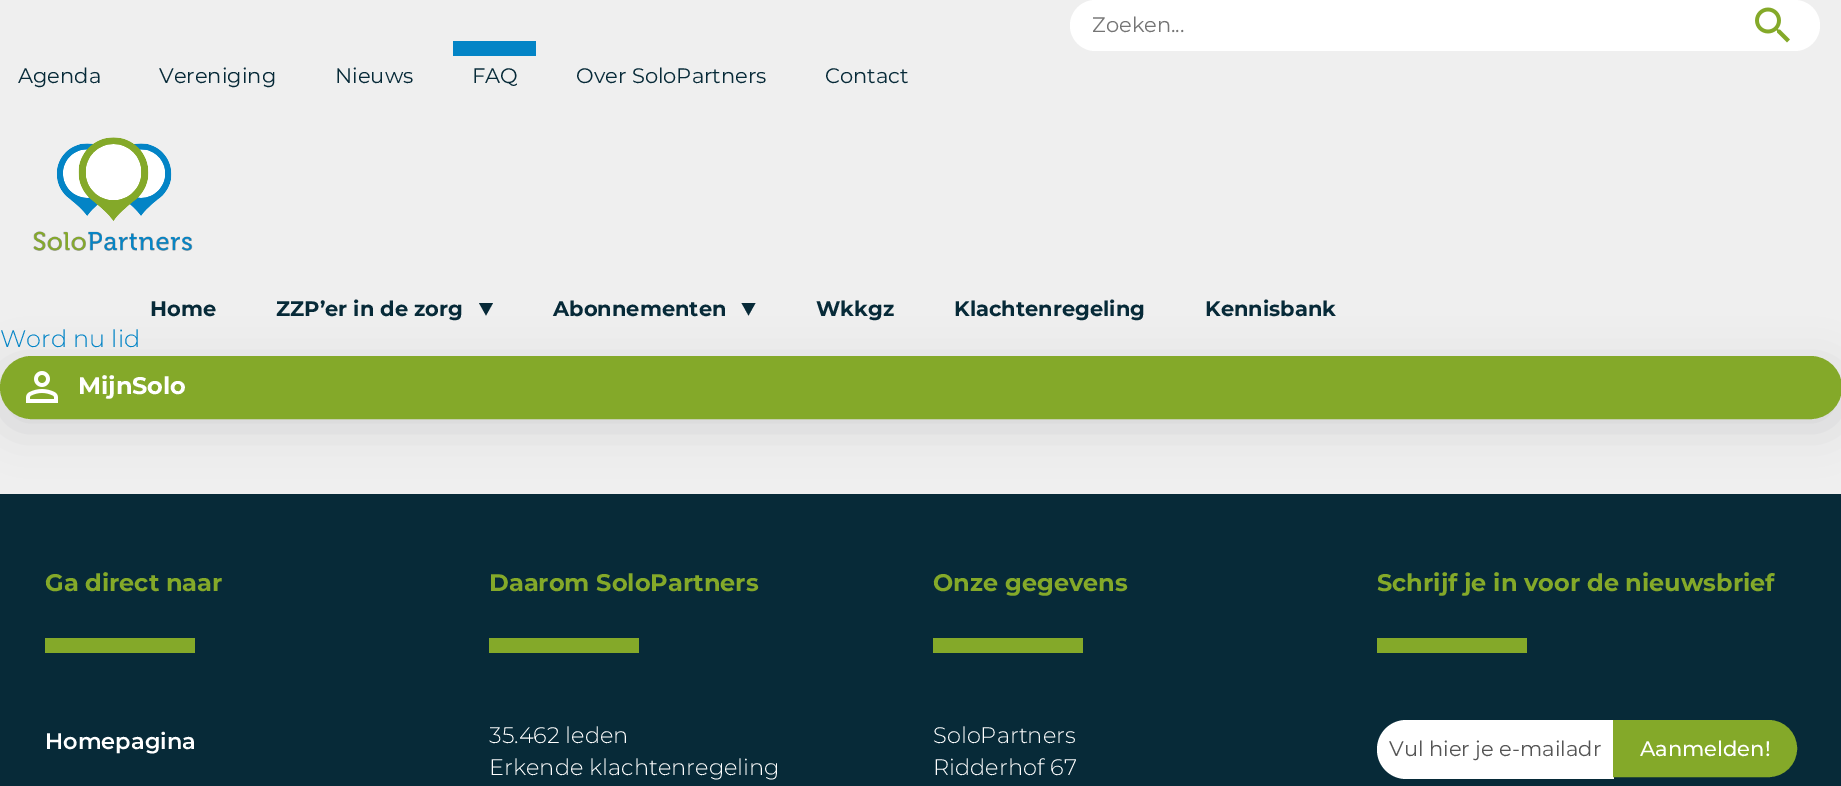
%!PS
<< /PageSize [1841 786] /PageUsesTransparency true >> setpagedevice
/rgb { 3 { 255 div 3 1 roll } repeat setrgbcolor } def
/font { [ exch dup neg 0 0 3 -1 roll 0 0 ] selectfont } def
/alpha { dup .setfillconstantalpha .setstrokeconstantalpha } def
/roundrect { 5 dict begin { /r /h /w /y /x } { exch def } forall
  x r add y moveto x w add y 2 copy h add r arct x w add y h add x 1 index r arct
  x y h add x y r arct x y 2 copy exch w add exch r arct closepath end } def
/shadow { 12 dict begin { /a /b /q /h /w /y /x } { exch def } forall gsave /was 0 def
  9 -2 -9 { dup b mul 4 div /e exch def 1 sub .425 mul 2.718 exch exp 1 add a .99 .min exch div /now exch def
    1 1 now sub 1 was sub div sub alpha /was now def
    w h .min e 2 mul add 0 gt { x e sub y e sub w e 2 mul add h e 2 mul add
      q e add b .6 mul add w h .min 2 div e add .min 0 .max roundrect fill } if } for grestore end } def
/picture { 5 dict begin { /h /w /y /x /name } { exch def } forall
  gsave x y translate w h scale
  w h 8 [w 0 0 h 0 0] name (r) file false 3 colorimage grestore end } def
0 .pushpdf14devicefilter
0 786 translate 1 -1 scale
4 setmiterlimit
239 239 239 rgb
0 0 1841 786 rectfill
255 255 255 rgb
1070 0 750 51 25.5 roundrect fill
(img/1.rgb) 1755 7 35 36 picture
3 132 198 rgb
453 41 83 15 rectfill
(img/2.rgb) 33 137 160 114 picture
gsave
479 303 15 14 rectclip
7 42 56 rgb
486 315.5 moveto 478.5 302 lineto 493.5 302 lineto closepath fill
grestore
gsave
741 303 15 14 rectclip
7 42 56 rgb
748.5 315.5 moveto 741 302 lineto 756 302 lineto closepath fill
grestore
7 42 56 rgb
0 494 1841 292 rectfill
99 99 110 rgb
0 366 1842 63 31.5 22 0.2 shadow
132 169 41 rgb
1.5 357.5 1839 60 30 roundrect gsave fill grestore
3 setlinewidth
stroke
(img/3.rgb) 26 371 32 32 picture
[
  [45 638 150 15 132 169 41]
  [489 638 150 15 132 169 41]
  [933 638 150 15 132 169 41]
  [1377 638 150 15 132 169 41]
] { aload pop rgb rectfill } forall
255 255 255 rgb
1406.5 720 moveto 1614 720 lineto 1614 779 lineto 1406.5 779 lineto 1390 779 1377 766 1377 749.5 curveto 1377 733 1390 720 1406.5 720 curveto closepath fill
132 169 41 rgb
1614.5 721.5 moveto 1768.5 721.5 lineto 1783.5 721.5 1795.5 733.5 1795.5 748.5 curveto 1795.5 763.5 1783.5 775.5 1768.5 775.5 curveto 1614.5 775.5 lineto closepath gsave fill grestore
stroke
/Montserrat-Regular 21 font
117 117 117 rgb
1092 32 moveto (Zoeken...) show
7 42 56 rgb
[
  [(Agenda) 18 83]
  [(Vereniging) 159 83]
  [(Nieuws) 335 83]
  [(FAQ) 472 83]
  [(Over SoloPartners) 576 83]
  [(Contact) 825 83]
] { aload pop moveto show } forall
/Montserrat-Bold 21 font
[
  [(Home) 150 316]
  [(ZZP’er in de zorg) 276 316]
  [(Abonnementen) 553 316]
  [(Wkkgz) 816 316]
  [(Klachtenregeling) 954 316]
  [(Kennisbank) 1205 316]
] { aload pop moveto show } forall
/Montserrat-Light 24 font
3 132 198 rgb
0 347 moveto (Word nu lid) show
/Montserrat-Bold 24 font
255 255 255 rgb
78 394 moveto (MijnSolo) show
132 169 41 rgb
45 591 moveto (Ga direct naar) show
/Montserrat-SemiBold 22.5 font
255 255 255 rgb
45 749 moveto (Homepagina) show
/Montserrat-Bold 24 font
132 169 41 rgb
489 591 moveto (Daarom SoloPartners) show
/Montserrat-Light 22.5 font
255 255 255 rgb
489 743 moveto (35.462 leden) show
489 775 moveto (Erkende klachtenregeling) show
/Montserrat-Bold 24 font
132 169 41 rgb
933 591 moveto (Onze gegevens) show
/Montserrat-Light 22.5 font
255 255 255 rgb
933 743 moveto (SoloPartners) show
933 775 moveto (Ridderhof 67) show
/Montserrat-Bold 24 font
132 169 41 rgb
1377 591 moveto (Schrijf je in voor de nieuwsbrief) show
/Montserrat-Regular 21 font
85 85 85 rgb
1389 756 moveto (Vul hier je e-mailadr) show
/Montserrat-Medium 21 font
255 255 255 rgb
1640 756 moveto (Aanmelden!) show
.poppdf14devicefilter showpage
